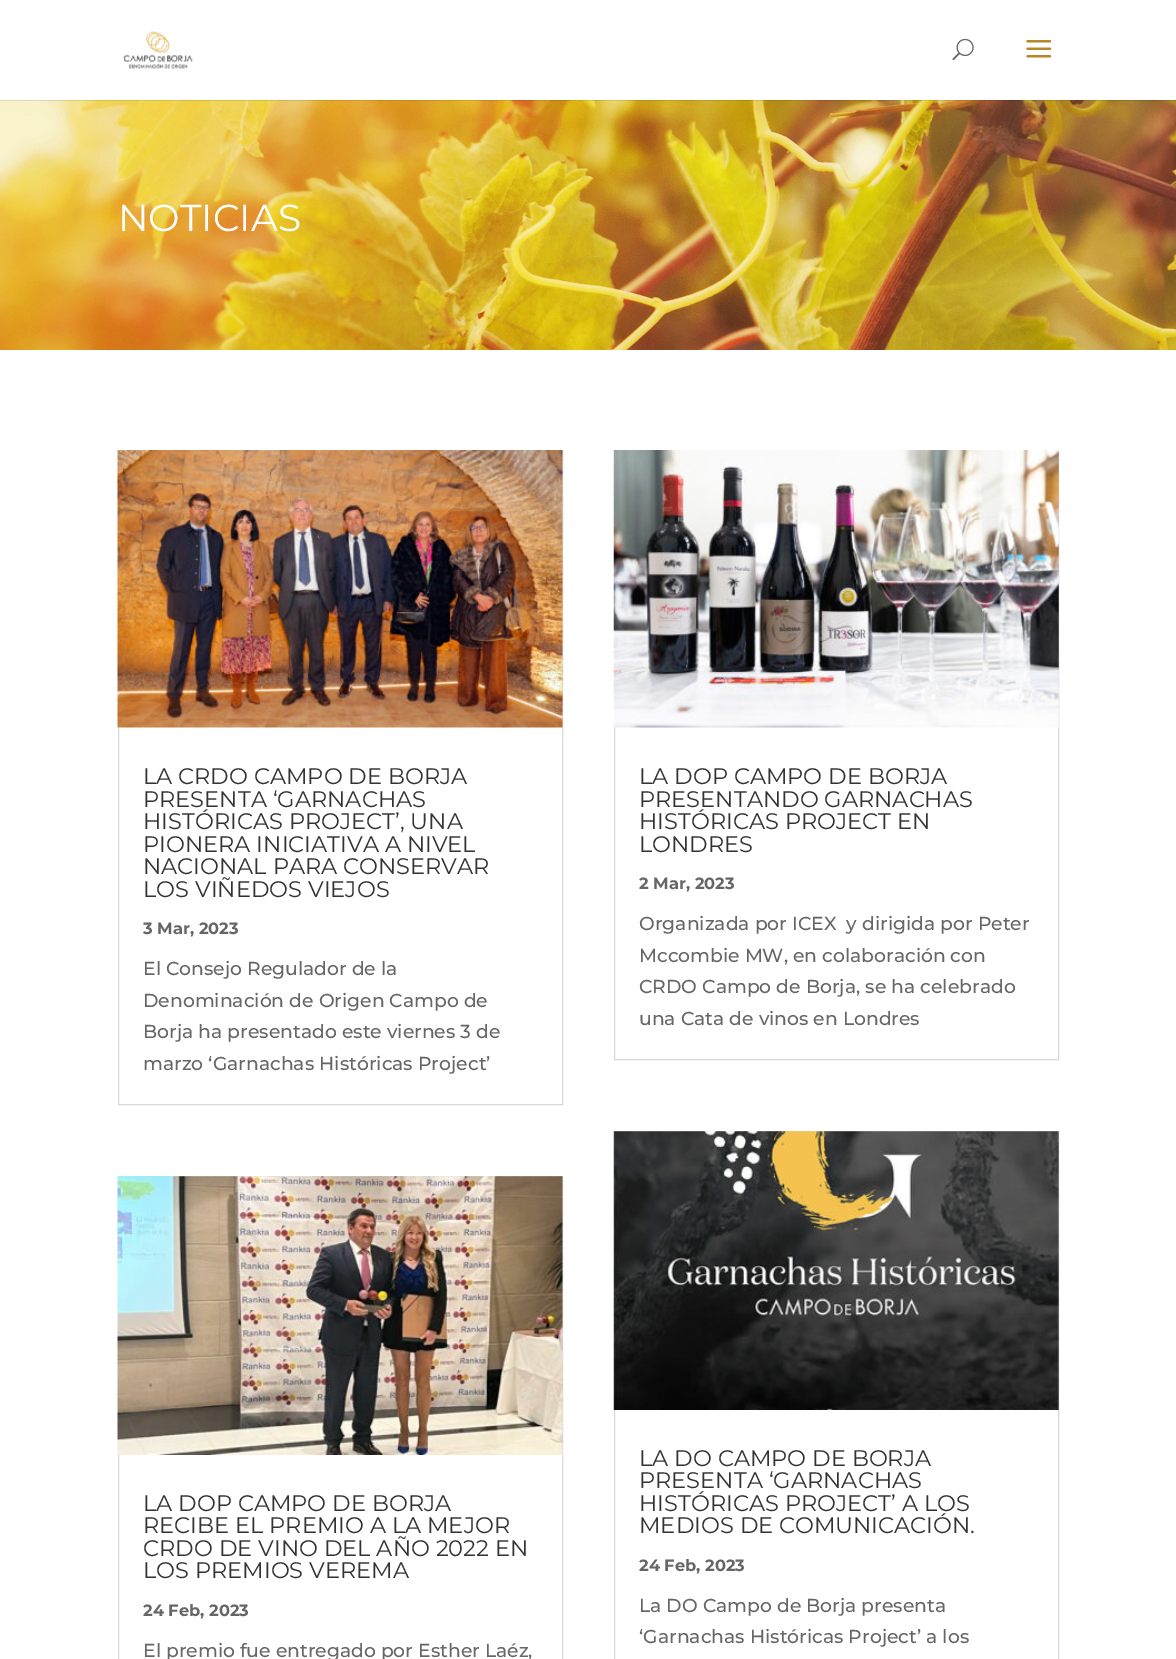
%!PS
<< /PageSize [1176 1659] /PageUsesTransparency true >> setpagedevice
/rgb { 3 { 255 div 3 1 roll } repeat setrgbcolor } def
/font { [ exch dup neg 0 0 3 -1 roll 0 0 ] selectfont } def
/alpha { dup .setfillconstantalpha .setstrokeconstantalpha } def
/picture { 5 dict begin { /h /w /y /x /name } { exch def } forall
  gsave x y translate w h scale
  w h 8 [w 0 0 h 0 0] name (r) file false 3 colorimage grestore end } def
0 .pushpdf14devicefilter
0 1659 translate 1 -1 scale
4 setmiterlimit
255 255 255 rgb
0 0 1176 1659 rectfill
(img/4.rgb) 0 100 1176 250 picture
0.1 alpha
0 0 0 rgb
0 100 1176 1 rectfill
1 alpha
(img/1.rgb) 123 31 70 38 picture
(img/2.rgb) 952 38 22 23 picture
(img/3.rgb) 1026 40 26 18 picture
216 216 216 rgb
118.5 450.5 444 654 rectstroke
(img/5.rgb) 117 450 446 278 picture
118.5 1176.5 444 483 rectstroke
(img/6.rgb) 117 1176 446 279 picture
614.5 450.5 444 609 rectstroke
(img/7.rgb) 613 450 446 278 picture
614.5 1131.5 444 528 rectstroke
(img/8.rgb) 613 1131 446 279 picture
/Montserrat-Regular 37.5 font
255 255 255 rgb
118 231 moveto (NOTICIAS) show
/Montserrat-Regular 22.5 font
51 51 51 rgb
[
  [(LA CRDO CAMPO DE BORJA) 143 784]
  [(PRESENTA ‘GARNACHAS) 143 807]
  [(HISTÓRICAS PROJECT’, UNA) 143 829]
  [(PIONERA INICIATIVA A NIVEL) 143 852]
  [(NACIONAL PARA CONSERVAR) 143 874]
  [(LOS VIÑEDOS VIEJOS) 143 897]
] { aload pop moveto show } forall
/Montserrat-Bold 16.25 font
102 102 102 rgb
143 934 moveto (3 Mar, 2023) show
/Montserrat-Medium 18.75 font
[
  [(El Consejo Regulador de la) 143 975]
  [(Denominación de Origen Campo de) 143 1007]
  [(Borja ha presentado este viernes 3 de) 143 1038]
  [(marzo ‘Garnachas Históricas Project’) 143 1070]
] { aload pop moveto show } forall
/Montserrat-Regular 22.5 font
51 51 51 rgb
[
  [(LA DOP CAMPO DE BORJA) 143 1511]
  [(RECIBE EL PREMIO A LA MEJOR) 143 1533]
  [(CRDO DE VINO DEL AÑO 2022 EN) 143 1556]
  [(LOS PREMIOS VEREMA) 143 1578]
] { aload pop moveto show } forall
/Montserrat-Bold 16.25 font
102 102 102 rgb
143 1616 moveto (24 Feb, 2023) show
/Montserrat-Medium 18.75 font
143 1657 moveto (El premio fue entregado por Esther Laéz,) show
/Montserrat-Regular 22.5 font
51 51 51 rgb
[
  [(LA DOP CAMPO DE BORJA) 639 784]
  [(PRESENTANDO GARNACHAS) 639 807]
  [(HISTÓRICAS PROJECT EN) 639 829]
  [(LONDRES) 639 852]
] { aload pop moveto show } forall
/Montserrat-Bold 16.25 font
102 102 102 rgb
639 889 moveto (2 Mar, 2023) show
/Montserrat-Medium 18.75 font
[
  [(Organizada por ICEX  y dirigida por Peter) 639 930]
  [(Mccombie MW, en colaboración con) 639 962]
  [(CRDO Campo de Borja, se ha celebrado) 639 993]
  [(una Cata de vinos en Londres) 639 1025]
] { aload pop moveto show } forall
/Montserrat-Regular 22.5 font
51 51 51 rgb
[
  [(LA DO CAMPO DE BORJA) 639 1466]
  [(PRESENTA ‘GARNACHAS) 639 1488]
  [(HISTÓRICAS PROJECT’ A LOS) 639 1511]
  [(MEDIOS DE COMUNICACIÓN.) 639 1533]
] { aload pop moveto show } forall
/Montserrat-Bold 16.25 font
102 102 102 rgb
639 1571 moveto (24 Feb, 2023) show
/Montserrat-Medium 18.75 font
639 1612 moveto (La DO Campo de Borja presenta) show
639 1643 moveto (‘Garnachas Históricas Project’ a los) show
.poppdf14devicefilter showpage
